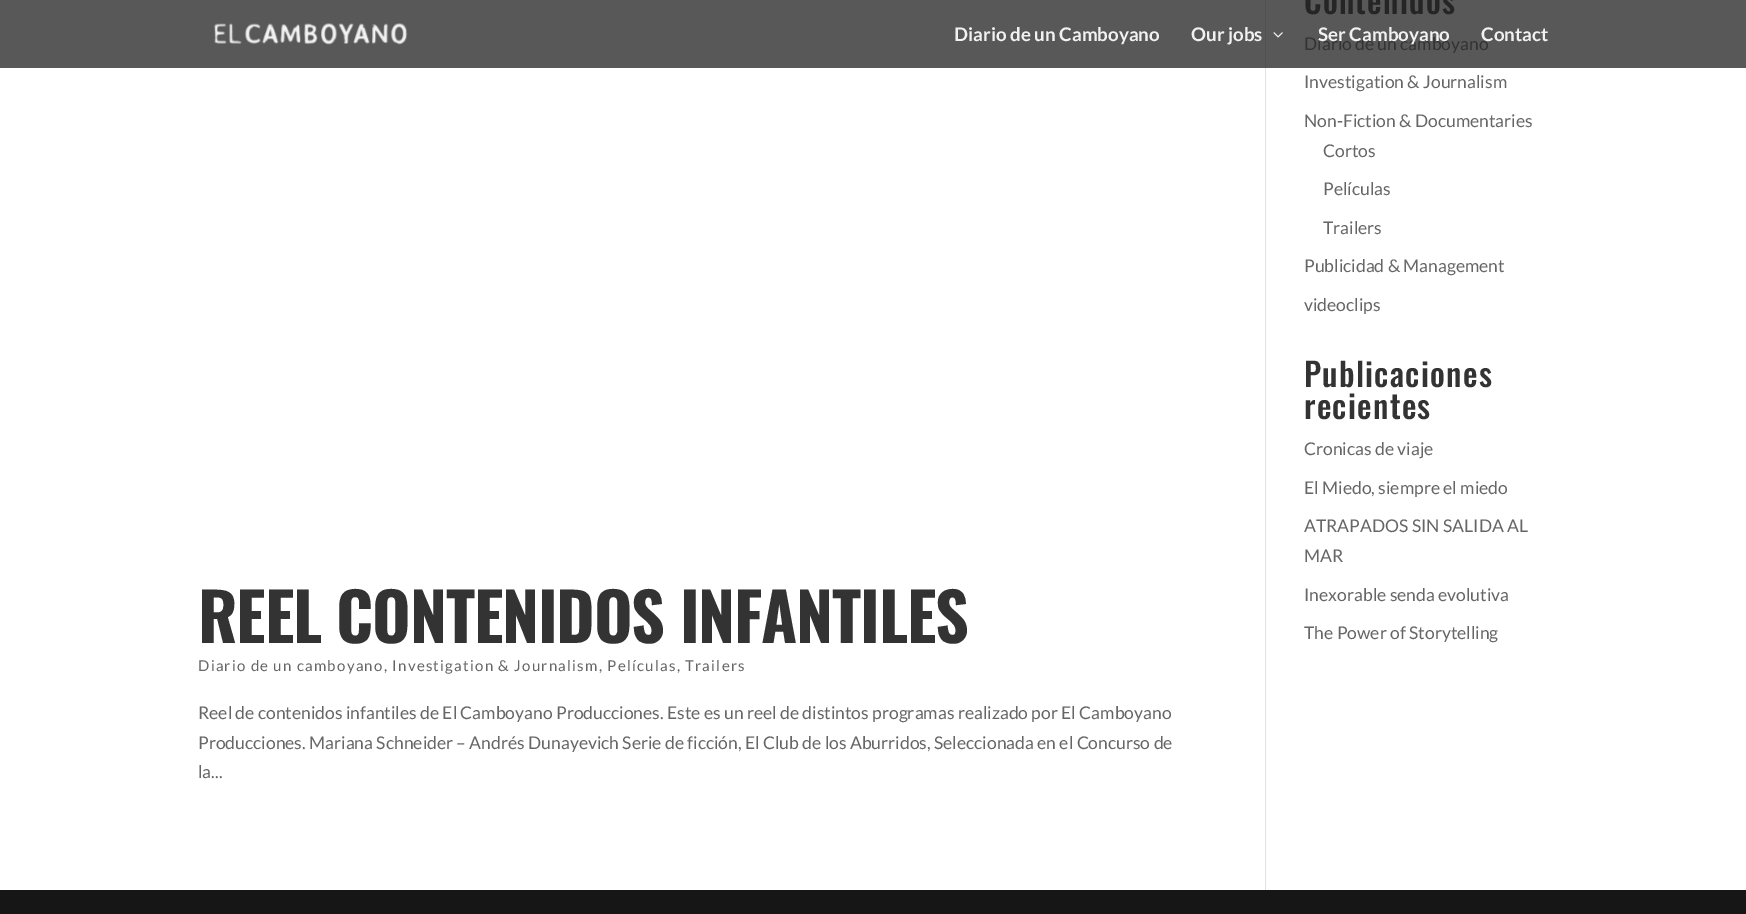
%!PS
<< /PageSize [1746 914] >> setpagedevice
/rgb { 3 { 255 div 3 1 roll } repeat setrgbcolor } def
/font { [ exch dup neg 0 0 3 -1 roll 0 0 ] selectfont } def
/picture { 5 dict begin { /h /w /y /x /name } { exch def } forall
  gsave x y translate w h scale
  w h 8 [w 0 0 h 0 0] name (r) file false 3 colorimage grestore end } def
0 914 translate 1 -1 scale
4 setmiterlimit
255 255 255 rgb
0 0 1746 914 rectfill
[
  [0 0 1746 68 88 88 88]
  [1265 68 1 822 226 226 226]
  [1265 0 1 68 81 81 81]
  [0 890 1746 24 22 22 22]
] { aload pop rgb rectfill } forall
(img/1.rgb) 214 23 194 22 picture
(img/2.rgb) 1273 32 10 6 picture
/Oswald-Medium 32.5 font
37 37 37 rgb
1304 14 moveto 1.25 0 (Contenidos) ashow
/Lato-Regular 17.5 font
51 51 51 rgb
1304 50 moveto (Diario de un camboyano) show
102 102 102 rgb
[
  [(Investigation & Journalism) 1304 88]
  [(Non-Fiction & Documentaries) 1304 127]
  [(Cortos) 1323 157]
  [(Películas) 1323 195]
  [(Trailers) 1323 234]
  [(Publicidad & Management) 1304 272]
  [(videoclips) 1304 311]
] { aload pop moveto show } forall
/Oswald-Medium 32.5 font
51 51 51 rgb
1304 387 moveto 1.25 0 (Publicaciones) ashow
1304 419 moveto 1.25 0 (recientes) ashow
/Lato-Regular 17.5 font
102 102 102 rgb
[
  [(Cronicas de viaje) 1304 455]
  [(El Miedo, siempre el miedo) 1304 494]
  [(ATRAPADOS SIN SALIDA AL) 1304 532]
  [(MAR) 1304 562]
  [(Inexorable senda evolutiva) 1304 601]
  [(The Power of Storytelling) 1304 639]
] { aload pop moveto show } forall
/Oswald-Bold 66 font
51 51 51 rgb
198 643 moveto -1.25 0 (REEL CONTENIDOS INFANTILES) ashow
/Lato-Regular 15 font
102 102 102 rgb
198 671 moveto 1.25 0 (Diario de un camboyano, Investigation & Journalism, Películas, Trailers) ashow
/Lato-Regular 17.5 font
[
  [(Reel de contenidos infantiles de El Camboyano Producciones. Este es un reel de distintos programas realizado por El Camboyano) 198 719]
  [(Producciones. Mariana Schneider – Andrés Dunayevich Serie de ficción, El Club de los Aburridos, Seleccionada en el Concurso de) 198 749]
  [(la...) 198 778]
] { aload pop moveto show } forall
/Lato-Bold 18.75 font
241 241 241 rgb
[
  [(Diario de un Camboyano) 954 41]
  [(Our jobs) 1191 41]
  [(Ser Camboyano) 1318 41]
  [(Contact) 1481 41]
] { aload pop moveto show } forall
showpage
